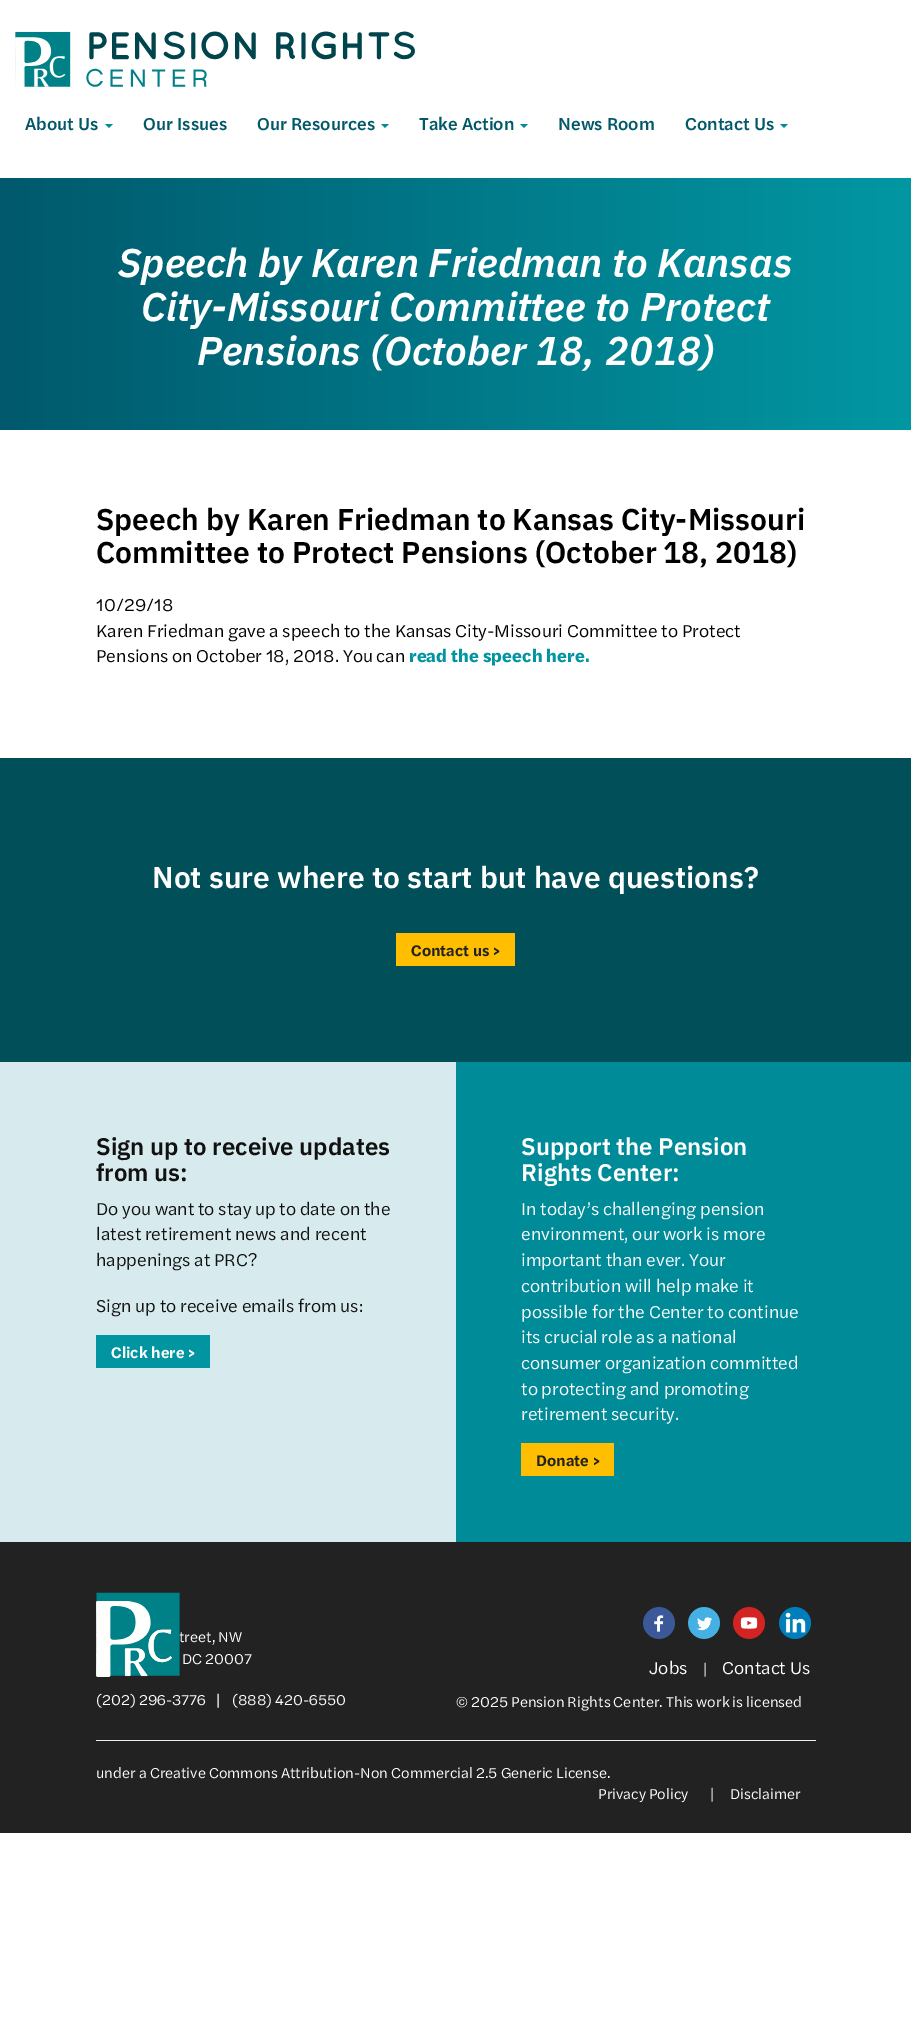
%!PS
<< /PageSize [911 2026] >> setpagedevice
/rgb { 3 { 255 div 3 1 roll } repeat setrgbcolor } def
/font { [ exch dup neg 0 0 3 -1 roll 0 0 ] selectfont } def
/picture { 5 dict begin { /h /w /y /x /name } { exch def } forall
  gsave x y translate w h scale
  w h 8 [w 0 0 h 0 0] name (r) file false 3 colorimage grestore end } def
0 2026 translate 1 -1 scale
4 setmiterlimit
255 255 255 rgb
0 0 911 2026 rectfill
(img/1.rgb) 15 31 400 56 picture
1 139 152 rgb
105 124 moveto 113 124 lineto 109 128 lineto closepath fill
381 124 moveto 389 124 lineto 385 128 lineto closepath fill
520 124 moveto 528 124 lineto 524 128 lineto closepath fill
780 124 moveto 788 124 lineto 784 128 lineto closepath fill
gsave 0 178 moveto 911 178 lineto 911 430 lineto 0 430 lineto closepath clip newpath
<< /ShadingType 2 /ColorSpace /DeviceRGB /Coords [0 304 911 304] /Extend [true true] /Function << /FunctionType 2 /Domain [0 1] /C0 [0 0.349 0.424] /C1 [0.004 0.592 0.639] /N 1 >> >> shfill grestore
[
  [0 758 911 304 0 79 89]
  [396 933 119 33 255 191 0]
  [0 1062 456 480 215 234 237]
  [456 1062 455 480 0 139 152]
  [96 1335 114 33 1 149 161]
  [521 1443 93 33 255 191 0]
  [0 1542 911 291 34 34 34]
] { aload pop rgb rectfill } forall
(img/3.rgb) 643 1607 32 32 picture
(img/4.rgb) 688 1607 32 32 picture
(img/5.rgb) 733 1607 32 32 picture
(img/6.rgb) 779 1607 32 32 picture
238 238 238 rgb
96 1740 720 1 rectfill
/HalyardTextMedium-Medium 18 font
2 88 105 rgb
[
  [(About Us) 25 130]
  [(Our Issues) 143 130]
  [(Our Resources) 257 130]
  [(Take Action) 419 130]
  [(News Room) 558 130]
  [(Contact Us) 685 130]
] { aload pop moveto show } forall
/IBMPlexSans-SemiBoldItalic 40 font
255 255 255 rgb
[
  [(Speech by Karen Friedman to Kansas) 118 277]
  [(City-Missouri Committee to Protect) 141 321]
  [(Pensions \(October 18, 2018\)) 197 365]
] { aload pop moveto show } forall
/IBMPlexSans-SemiBold 30 font
0 0 0 rgb
96 530 moveto (Speech by Karen Friedman to Kansas City-Missouri) show
96 563 moveto (Committee to Protect Pensions \(October 18, 2018\)) show
/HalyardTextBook-Regular 18 font
[
  [(10/29/18) 96 611]
  [(Karen Friedman gave a speech to the Kansas City-Missouri Committee to Protect) 96 637]
  [(Pensions on October 18, 2018. You can) 96 662]
] { aload pop moveto show } forall
/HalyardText-Bold 18 font
1 149 161 rgb
409 662 moveto (read the speech here.) show
/IBMPlexSans-SemiBold 30 font
255 255 255 rgb
152 888 moveto (Not sure where to start but have questions?) show
/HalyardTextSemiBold-SemiBold 16 font
34 34 34 rgb
411 956 moveto (Contact us >) show
/IBMPlexSans-SemiBold 24 font
17 17 17 rgb
96 1155 moveto (Sign up to receive updates) show
96 1181 moveto (from us:) show
/HalyardTextBook-Regular 18 font
[
  [(Do you want to stay up to date on the) 96 1215]
  [(latest retirement news and recent) 96 1240]
  [(happenings at PRC?) 96 1266]
  [(Sign up to receive emails from us:) 96 1312]
] { aload pop moveto show } forall
/HalyardTextSemiBold-SemiBold 16 font
255 255 255 rgb
111 1358 moveto (Click here >) show
/IBMPlexSans-SemiBold 24 font
521 1155 moveto (Support the Pension) show
521 1181 moveto (Rights Center:) show
/HalyardTextBook-Regular 18 font
[
  [(In today’s challenging pension) 521 1215]
  [(environment, our work is more) 521 1240]
  [(important than ever. Your) 521 1266]
  [(contribution will help make it) 521 1292]
  [(possible for the Center to continue) 521 1318]
  [(its crucial role as a national) 521 1343]
  [(consumer organization committed) 521 1369]
  [(to protecting and promoting) 521 1395]
  [(retirement security.) 521 1420]
] { aload pop moveto show } forall
/HalyardTextSemiBold-SemiBold 16 font
34 34 34 rgb
536 1466 moveto (Donate >) show
/HalyardTextBook-Regular 15 font
255 255 255 rgb
179 1642 moveto (treet, NW) show
(img/2.rgb) 96 1592 84 85 picture
[
  [(DC 20007) 182 1664]
  [(\(202\) 296-3776) 96 1705]
  [(|) 216 1705]
  [(\(888\) 420-6550) 232 1705]
] { aload pop moveto show } forall
/HalyardTextBook-Regular 18 font
649 1674 moveto (Jobs) show
/HalyardTextBook-Regular 15 font
204 204 204 rgb
703 1674 moveto (|) show
/HalyardTextBook-Regular 18 font
255 255 255 rgb
722 1674 moveto (Contact Us) show
/HalyardTextBook-Regular 15 font
[
  [(© 2025 Pension Rights Center. This work is licensed) 456 1707]
  [(under a Creative Commons Attribution-Non Commercial 2.5 Generic License.) 96 1778]
  [(Privacy Policy) 598 1799]
] { aload pop moveto show } forall
204 204 204 rgb
710 1799 moveto (|) show
255 255 255 rgb
730 1799 moveto (Disclaimer) show
showpage
